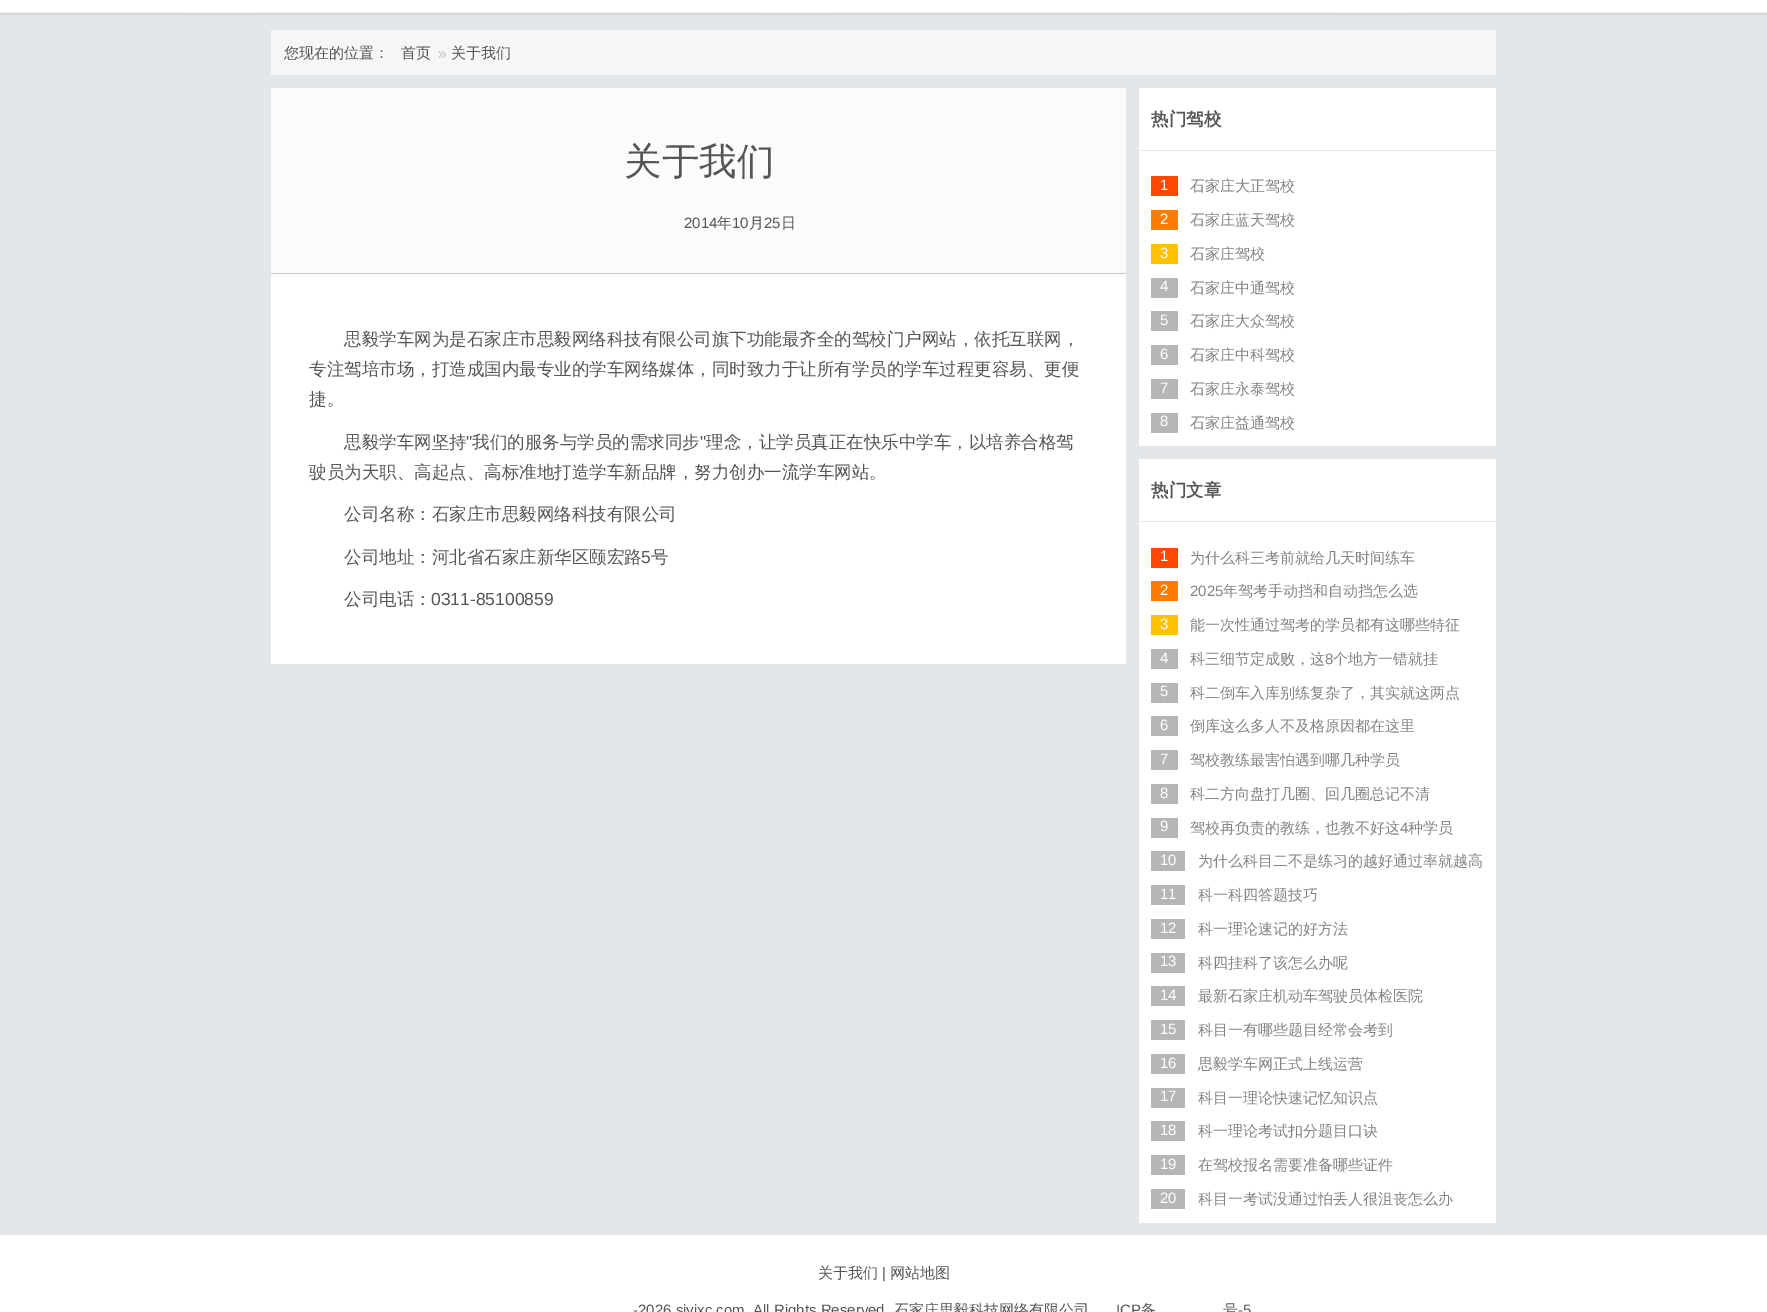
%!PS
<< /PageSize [1767 1312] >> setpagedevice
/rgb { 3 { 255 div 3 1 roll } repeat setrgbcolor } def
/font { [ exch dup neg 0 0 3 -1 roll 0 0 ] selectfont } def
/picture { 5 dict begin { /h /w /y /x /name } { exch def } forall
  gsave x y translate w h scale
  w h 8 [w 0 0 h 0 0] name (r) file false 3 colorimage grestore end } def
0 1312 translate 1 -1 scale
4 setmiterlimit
255 255 255 rgb
0 0 1767 1312 rectfill
227 231 234 rgb
0 16 1767 1219 rectfill
(img/1.rgb) 0 0 1767 16 picture
244 246 247 rgb
271 30 1225 45 rectfill
(img/2.rgb) 438 51 9 7 picture
[
  [271 274 855 390 255 255 255]
  [271 88 855 185 251 251 251]
  [271 273 855 1 204 204 204]
  [1139 88 357 358 255 255 255]
  [1139 150 357 1 231 231 231]
  [1151 176 27 20 254 72 0]
  [1151 210 27 20 255 124 0]
  [1151 244 27 20 255 193 0]
  [1151 278 27 20 182 182 182]
  [1151 311 27 20 182 182 182]
  [1151 345 27 20 182 182 182]
  [1151 379 27 20 182 182 182]
  [1151 413 27 20 182 182 182]
  [1139 459 357 764 255 255 255]
  [1139 521 357 1 231 231 231]
  [1151 548 27 20 254 72 0]
  [1151 581 27 20 255 124 0]
  [1151 615 27 20 255 193 0]
  [1151 649 27 20 182 182 182]
  [1151 683 27 20 182 182 182]
  [1151 716 27 20 182 182 182]
  [1151 750 27 20 182 182 182]
  [1151 784 27 20 182 182 182]
  [1151 818 27 20 182 182 182]
  [1151 851 34 20 182 182 182]
  [1151 885 34 20 182 182 182]
  [1151 919 34 20 182 182 182]
  [1151 953 34 20 182 182 182]
  [1151 986 34 20 182 182 182]
  [1151 1020 34 20 182 182 182]
  [1151 1054 34 20 182 182 182]
  [1151 1088 34 20 182 182 182]
  [1151 1121 34 20 182 182 182]
  [1151 1155 34 20 182 182 182]
  [1151 1189 34 20 182 182 182]
] { aload pop rgb rectfill } forall
/WenQuanYiZenHei-Medium 15 font
85 85 85 rgb
[
  [(您现在的位置：) 284 58]
  [(首页) 401 58]
  [(关于我们) 451 58]
] { aload pop moveto show } forall
/WenQuanYiZenHei-Medium 37.5 font
624 174 moveto (关于我们) show
/LiberationSans-Regular 15 font
684 228 moveto (2014) show
/WenQuanYiZenHei-Medium 15 font
717 228 moveto (年) show
/LiberationSans-Regular 15 font
732 228 moveto (10) show
/WenQuanYiZenHei-Medium 15 font
749 228 moveto (月) show
/LiberationSans-Regular 15 font
764 228 moveto (25) show
/WenQuanYiZenHei-Medium 15 font
781 228 moveto (日) show
/WenQuanYiZenHei-Medium 17.5 font
[
  [(思毅学车网为是石家庄市思毅网络科技有限公司旗下功能最齐全的驾校门户网站，依托互联网，) 344 345]
  [(专注驾培市场，打造成国内最专业的学车网络媒体，同时致力于让所有学员的学车过程更容易、更便) 309 375]
  [(捷。) 309 405]
  [(思毅学车网坚持) 344 448]
] { aload pop moveto show } forall
/LiberationSans-Regular 17.5 font
466 448 moveto (") show
/WenQuanYiZenHei-Medium 17.5 font
472 448 moveto (我们的服务与学员的需求同步) show
/LiberationSans-Regular 17.5 font
700 448 moveto (") show
/WenQuanYiZenHei-Medium 17.5 font
[
  [(理念，让学员真正在快乐中学车，以培养合格驾) 706 448]
  [(驶员为天职、高起点、高标准地打造学车新品牌，努力创办一流学车网站。) 309 478]
  [(公司名称：石家庄市思毅网络科技有限公司) 344 520]
  [(公司地址：河北省石家庄新华区颐宏路) 344 563]
] { aload pop moveto show } forall
/LiberationSans-Regular 17.5 font
641 563 moveto (5) show
/WenQuanYiZenHei-Medium 17.5 font
651 563 moveto (号) show
344 605 moveto (公司电话：) show
/LiberationSans-Regular 17.5 font
431 605 moveto (0311-85100859) show
/WenQuanYiZenHei-Bold 17.5 font
1151 125 moveto (热门驾校) show
/LiberationSans-Regular 15 font
255 255 255 rgb
1160 190 moveto (1) show
/WenQuanYiZenHei-Medium 15 font
131 131 131 rgb
1190 191 moveto (石家庄大正驾校) show
/LiberationSans-Regular 15 font
255 255 255 rgb
1160 224 moveto (2) show
/WenQuanYiZenHei-Medium 15 font
131 131 131 rgb
1190 225 moveto (石家庄蓝天驾校) show
/LiberationSans-Regular 15 font
255 255 255 rgb
1160 258 moveto (3) show
/WenQuanYiZenHei-Medium 15 font
131 131 131 rgb
1190 259 moveto (石家庄驾校) show
/LiberationSans-Regular 15 font
255 255 255 rgb
1160 291 moveto (4) show
/WenQuanYiZenHei-Medium 15 font
131 131 131 rgb
1190 293 moveto (石家庄中通驾校) show
/LiberationSans-Regular 15 font
255 255 255 rgb
1160 325 moveto (5) show
/WenQuanYiZenHei-Medium 15 font
131 131 131 rgb
1190 326 moveto (石家庄大众驾校) show
/LiberationSans-Regular 15 font
255 255 255 rgb
1160 359 moveto (6) show
/WenQuanYiZenHei-Medium 15 font
131 131 131 rgb
1190 360 moveto (石家庄中科驾校) show
/LiberationSans-Regular 15 font
255 255 255 rgb
1160 393 moveto (7) show
/WenQuanYiZenHei-Medium 15 font
131 131 131 rgb
1190 394 moveto (石家庄永泰驾校) show
/LiberationSans-Regular 15 font
255 255 255 rgb
1160 426 moveto (8) show
/WenQuanYiZenHei-Medium 15 font
131 131 131 rgb
1190 428 moveto (石家庄益通驾校) show
/WenQuanYiZenHei-Bold 17.5 font
85 85 85 rgb
1151 496 moveto (热门文章) show
/LiberationSans-Regular 15 font
255 255 255 rgb
1160 561 moveto (1) show
/WenQuanYiZenHei-Medium 15 font
131 131 131 rgb
1190 563 moveto (为什么科三考前就给几天时间练车) show
/LiberationSans-Regular 15 font
255 255 255 rgb
1160 595 moveto (2) show
131 131 131 rgb
1190 596 moveto (2025) show
/WenQuanYiZenHei-Medium 15 font
1223 596 moveto (年驾考手动挡和自动挡怎么选) show
/LiberationSans-Regular 15 font
255 255 255 rgb
1160 629 moveto (3) show
/WenQuanYiZenHei-Medium 15 font
131 131 131 rgb
1190 630 moveto (能一次性通过驾考的学员都有这哪些特征) show
/LiberationSans-Regular 15 font
255 255 255 rgb
1160 663 moveto (4) show
/WenQuanYiZenHei-Medium 15 font
131 131 131 rgb
1190 664 moveto (科三细节定成败，这) show
/LiberationSans-Regular 15 font
1325 664 moveto (8) show
/WenQuanYiZenHei-Medium 15 font
1333 664 moveto (个地方一错就挂) show
/LiberationSans-Regular 15 font
255 255 255 rgb
1160 696 moveto (5) show
/WenQuanYiZenHei-Medium 15 font
131 131 131 rgb
1190 698 moveto (科二倒车入库别练复杂了，其实就这两点) show
/LiberationSans-Regular 15 font
255 255 255 rgb
1160 730 moveto (6) show
/WenQuanYiZenHei-Medium 15 font
131 131 131 rgb
1190 731 moveto (倒库这么多人不及格原因都在这里) show
/LiberationSans-Regular 15 font
255 255 255 rgb
1160 764 moveto (7) show
/WenQuanYiZenHei-Medium 15 font
131 131 131 rgb
1190 765 moveto (驾校教练最害怕遇到哪几种学员) show
/LiberationSans-Regular 15 font
255 255 255 rgb
1160 798 moveto (8) show
/WenQuanYiZenHei-Medium 15 font
131 131 131 rgb
1190 799 moveto (科二方向盘打几圈、回几圈总记不清) show
/LiberationSans-Regular 15 font
255 255 255 rgb
1160 831 moveto (9) show
/WenQuanYiZenHei-Medium 15 font
131 131 131 rgb
1190 833 moveto (驾校再负责的教练，也教不好这) show
/LiberationSans-Regular 15 font
1400 833 moveto (4) show
/WenQuanYiZenHei-Medium 15 font
1408 833 moveto (种学员) show
/LiberationSans-Regular 15 font
255 255 255 rgb
1160 865 moveto (10) show
/WenQuanYiZenHei-Medium 15 font
131 131 131 rgb
1198 866 moveto (为什么科目二不是练习的越好通过率就越高) show
/LiberationSans-Regular 15 font
255 255 255 rgb
1160 899 moveto (11) show
/WenQuanYiZenHei-Medium 15 font
131 131 131 rgb
1198 900 moveto (科一科四答题技巧) show
/LiberationSans-Regular 15 font
255 255 255 rgb
1160 933 moveto (12) show
/WenQuanYiZenHei-Medium 15 font
131 131 131 rgb
1198 934 moveto (科一理论速记的好方法) show
/LiberationSans-Regular 15 font
255 255 255 rgb
1160 966 moveto (13) show
/WenQuanYiZenHei-Medium 15 font
131 131 131 rgb
1198 968 moveto (科四挂科了该怎么办呢) show
/LiberationSans-Regular 15 font
255 255 255 rgb
1160 1000 moveto (14) show
/WenQuanYiZenHei-Medium 15 font
131 131 131 rgb
1198 1001 moveto (最新石家庄机动车驾驶员体检医院) show
/LiberationSans-Regular 15 font
255 255 255 rgb
1160 1034 moveto (15) show
/WenQuanYiZenHei-Medium 15 font
131 131 131 rgb
1198 1035 moveto (科目一有哪些题目经常会考到) show
/LiberationSans-Regular 15 font
255 255 255 rgb
1160 1068 moveto (16) show
/WenQuanYiZenHei-Medium 15 font
131 131 131 rgb
1198 1069 moveto (思毅学车网正式上线运营) show
/LiberationSans-Regular 15 font
255 255 255 rgb
1160 1101 moveto (17) show
/WenQuanYiZenHei-Medium 15 font
131 131 131 rgb
1198 1103 moveto (科目一理论快速记忆知识点) show
/LiberationSans-Regular 15 font
255 255 255 rgb
1160 1135 moveto (18) show
/WenQuanYiZenHei-Medium 15 font
131 131 131 rgb
1198 1136 moveto (科一理论考试扣分题目口诀) show
/LiberationSans-Regular 15 font
255 255 255 rgb
1160 1169 moveto (19) show
/WenQuanYiZenHei-Medium 15 font
131 131 131 rgb
1198 1170 moveto (在驾校报名需要准备哪些证件) show
/LiberationSans-Regular 15 font
255 255 255 rgb
1160 1203 moveto (20) show
/WenQuanYiZenHei-Medium 15 font
131 131 131 rgb
1198 1204 moveto (科目一考试没通过怕丢人很沮丧怎么办) show
85 85 85 rgb
818 1278 moveto (关于我们) show
/LiberationSans-Regular 15 font
882 1278 moveto (|) show
/WenQuanYiZenHei-Medium 15 font
890 1278 moveto (网站地图) show
/LiberationSans-Regular 15 font
633 1315 moveto (-2026 siyixc.com, All Rights Reserved) show
/WenQuanYiZenHei-Medium 15 font
894 1315 moveto (石家庄思毅科技网络有限公司) show
/LiberationSans-Regular 15 font
1116 1315 moveto (ICP) show
/WenQuanYiZenHei-Medium 15 font
1141 1315 moveto (备) show
1223 1315 moveto (号) show
/LiberationSans-Regular 15 font
1238 1315 moveto (-5) show
showpage
